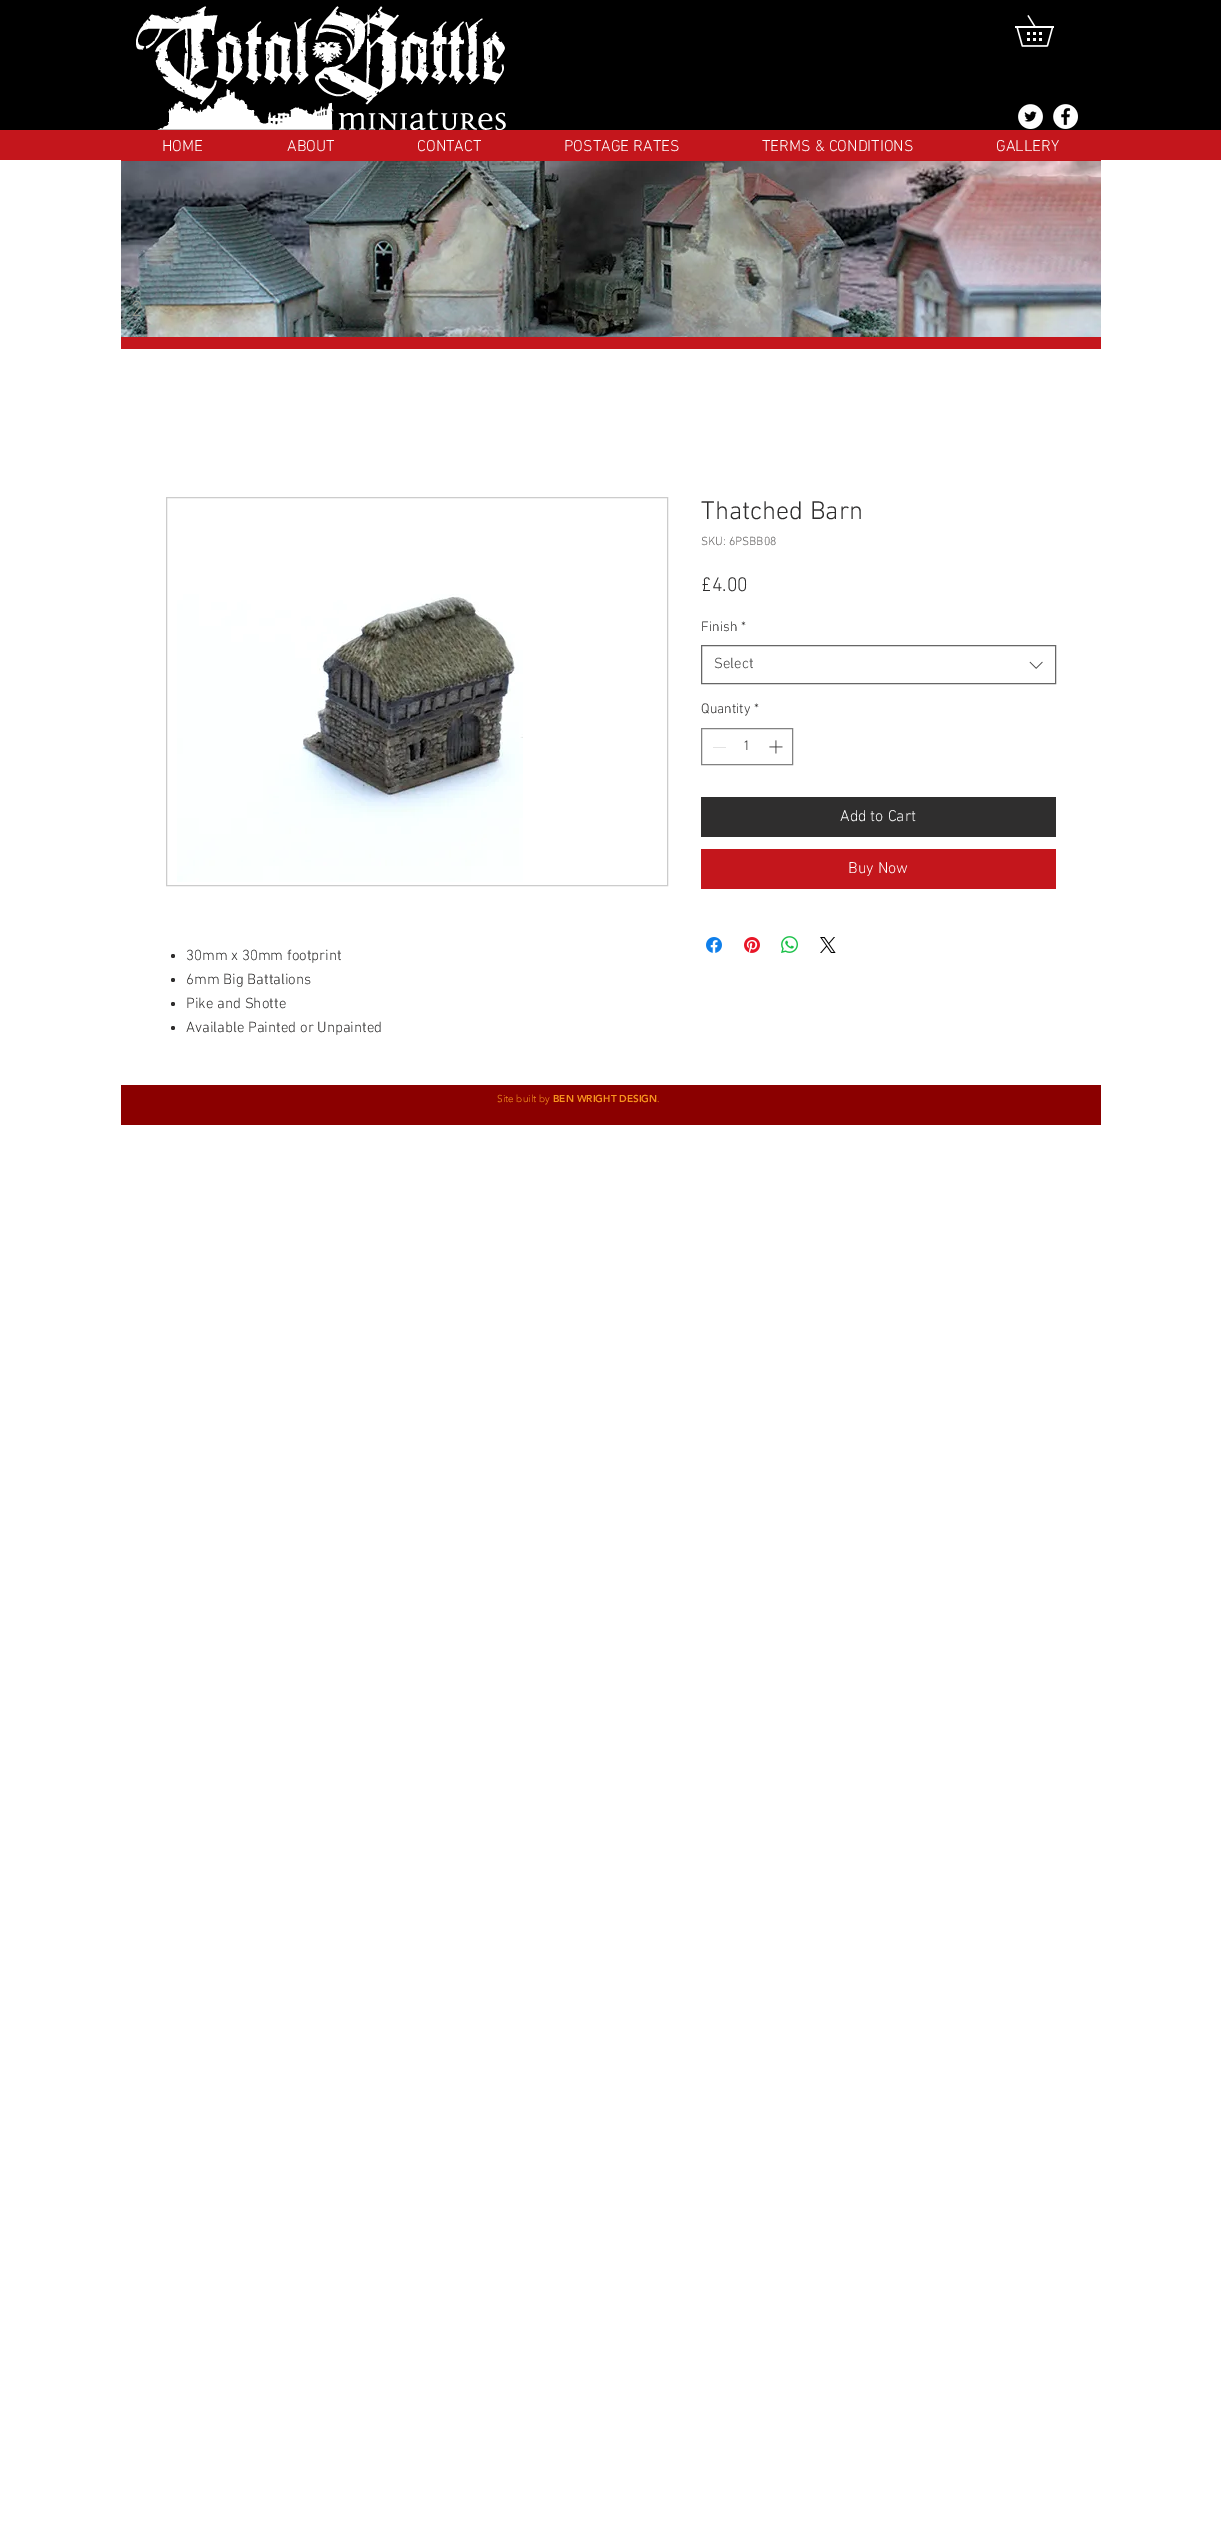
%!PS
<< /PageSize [1221 2529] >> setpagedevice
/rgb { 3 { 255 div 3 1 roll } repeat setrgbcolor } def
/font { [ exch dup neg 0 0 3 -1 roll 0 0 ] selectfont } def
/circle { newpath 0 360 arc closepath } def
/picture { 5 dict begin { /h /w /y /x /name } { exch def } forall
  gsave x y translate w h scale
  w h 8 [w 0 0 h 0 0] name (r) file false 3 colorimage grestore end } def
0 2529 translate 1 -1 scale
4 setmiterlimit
255 255 255 rgb
0 0 1221 2529 rectfill
(img/1.rgb) 0 0 1221 160 picture
(img/2.rgb) 136 6 370 124 picture
(img/3.rgb) 1015 15 39 32 picture
(img/4.rgb) 1018 104 25 25 picture
(img/5.rgb) 1053 104 25 25 picture
196 22 28 rgb
121 160 980 1 rectfill
(img/6.rgb) 121 161 980 176 picture
121 337 980 12 rectfill
102 102 102 rgb
701.5 645.5 354 38 rectstroke
(img/7.rgb) 1029 661 14 8 picture
130 130 130 rgb
701.5 728.5 91 36 rectstroke
227 227 227 rgb
713 747 13 1 rectfill
(img/8.rgb) 769 740 14 14 picture
47 46 46 rgb
701 797 355 40 rectfill
196 22 28 rgb
701 849 355 40 rectfill
(img/9.rgb) 706 937 16 16 picture
(img/10.rgb) 744 937 16 16 picture
(img/11.rgb) 781 936 17 17 picture
(img/12.rgb) 820 937 16 16 picture
204 204 204 rgb
166.5 497.5 501 388 rectstroke
(img/13.rgb) 177 594 346 288 picture
47 46 46 rgb
173 956 2 circle fill
173 980 2 circle fill
173 1004 2 circle fill
173 1028 2 circle fill
139 0 0 rgb
121 1085 980 40 rectfill
/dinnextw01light-Light 16 font
255 255 255 rgb
[
  [(HOME) 162 151]
  [(ABOUT) 287 151]
  [(CONTACT) 417 151]
  [(POSTAGE RATES) 564 151]
  [(TERMS & CONDITIONS) 762 151]
  [(GALLERY) 996 151]
] { aload pop moveto show } forall
/dinnextw01light-Light 22 font
151 153 142 rgb
131 316 moveto (2) show
/dinnextw01light-Light 26 font
47 46 46 rgb
701 519 moveto (Thatched Barn) show
/dinnextw01light-Light 12 font
96 94 94 rgb
701 545 moveto (SKU: 6PSBB08) show
/dinnextw01light-Light 20 font
47 46 46 rgb
701 591 moveto (£4.00) show
/dinnextw01light-Light 14 font
701 631 moveto (Finish) show
741 631 moveto (*) show
/dinnextw01light-Light 15 font
68 68 68 rgb
714 668 moveto (Select) show
/dinnextw01light-Light 14 font
47 46 46 rgb
[
  [(Quantity) 701 713]
  [(*) 754 713]
  [(1) 743 750]
] { aload pop moveto show } forall
/dinnextw01light-Light 16 font
255 255 255 rgb
840 821 moveto (Add to Cart) show
848 873 moveto (Buy Now) show
/dinnextw01light-Light 15 font
47 46 46 rgb
[
  [(30mm x 30mm footprint) 186 960]
  [(6mm Big Battalions) 186 984]
  [(Pike and Shotte) 186 1008]
  [(Available Painted or Unpainted) 186 1032]
] { aload pop moveto show } forall
/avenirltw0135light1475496-Light 10 font
247 147 30 rgb
497 1102 moveto (Site built by) show
/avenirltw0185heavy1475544-Black 10 font
553 1102 moveto (BEN WRIGHT DESIGN) show
/avenirltw0135light1475496-Light 10 font
657 1102 moveto (.) show
showpage
